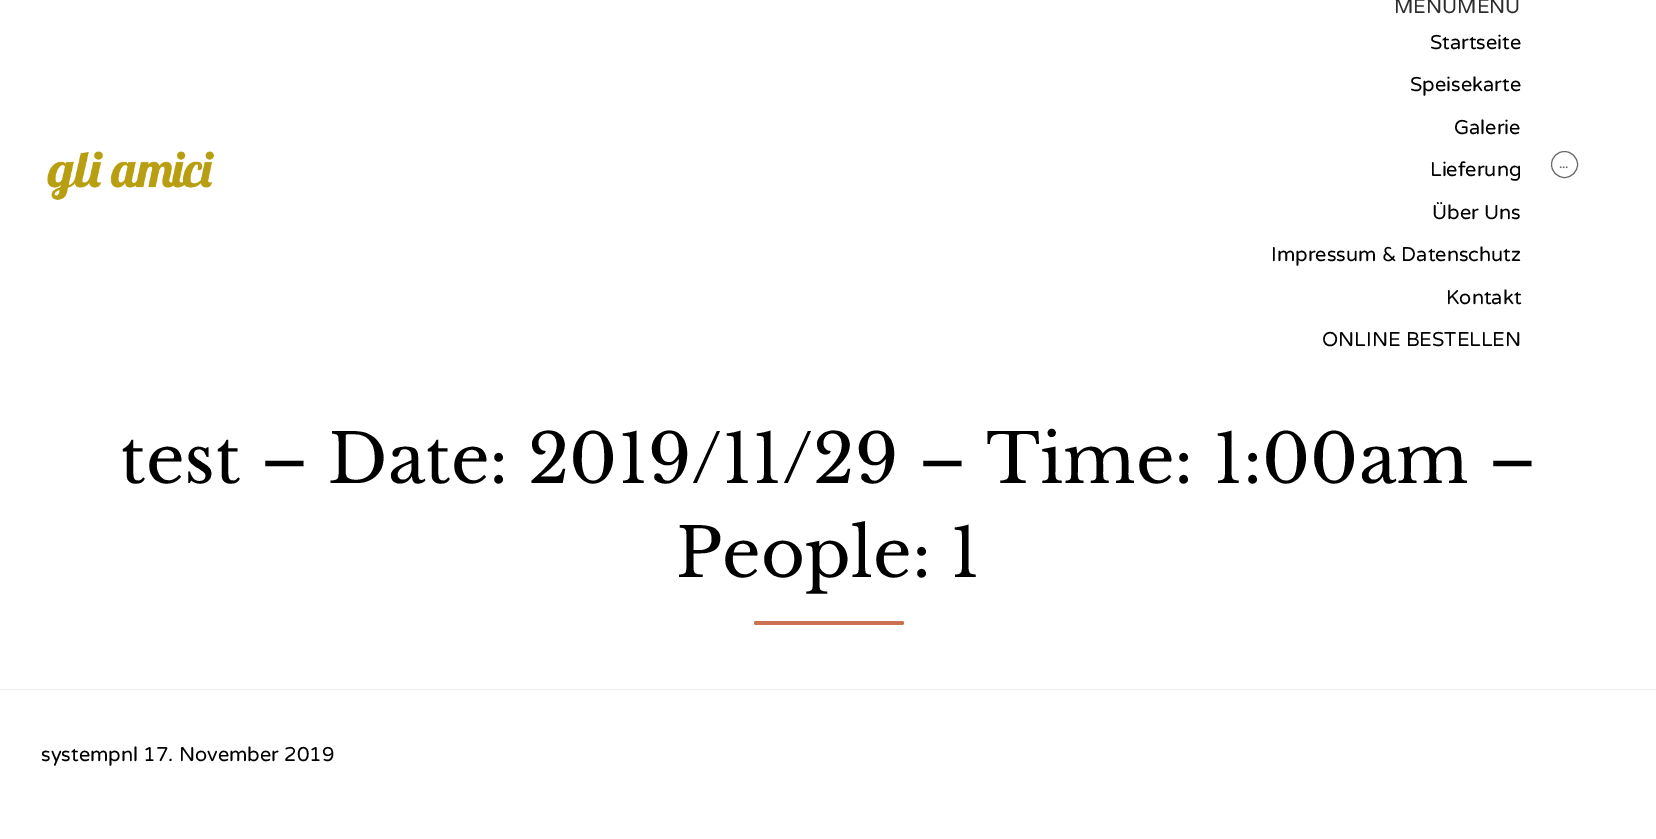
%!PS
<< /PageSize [1656 839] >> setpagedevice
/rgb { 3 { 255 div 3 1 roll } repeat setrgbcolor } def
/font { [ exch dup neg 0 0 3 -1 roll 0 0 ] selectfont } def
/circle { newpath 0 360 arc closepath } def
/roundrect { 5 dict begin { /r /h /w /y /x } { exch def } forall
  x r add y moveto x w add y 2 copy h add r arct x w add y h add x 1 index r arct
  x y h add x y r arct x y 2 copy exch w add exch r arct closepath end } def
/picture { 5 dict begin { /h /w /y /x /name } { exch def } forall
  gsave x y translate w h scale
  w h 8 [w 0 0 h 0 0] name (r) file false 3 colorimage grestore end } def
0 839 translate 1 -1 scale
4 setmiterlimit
255 255 255 rgb
0 0 1656 839 rectfill
(img/1.rgb) 47 151 167 49 picture
107 107 107 rgb
1564.5 164.5 13 circle stroke
237 237 237 rgb
0 689 1656 1 rectfill
203 113 82 rgb
754 621 150 4 2 roundrect fill
/VarelaRound-Regular 20 font
44 44 44 rgb
1394 13 moveto (MENUMENU) show
0 0 0 rgb
[
  [(Startseite) 1430 49]
  [(Speisekarte) 1410 91]
  [(Galerie) 1454 134]
  [(Lieferung) 1430 176]
  [(Über Uns) 1432 219]
  [(Impressum & Datenschutz) 1271 261]
  [(Kontakt) 1446 304]
  [(ONLINE BESTELLEN) 1322 346]
] { aload pop moveto show } forall
/VarelaRound-Bold 12 font
107 107 107 rgb
1559 168 moveto (...) show
/LibreBaskerville-Regular 67.5 font
0 0 0 rgb
120 483 moveto (test – Date: 2019/11/29 – Time: 1:00am –) show
676 577 moveto (People: 1) show
/VarelaRound-Regular 20 font
41 761 moveto (systempnl 17. November 2019) show
showpage
